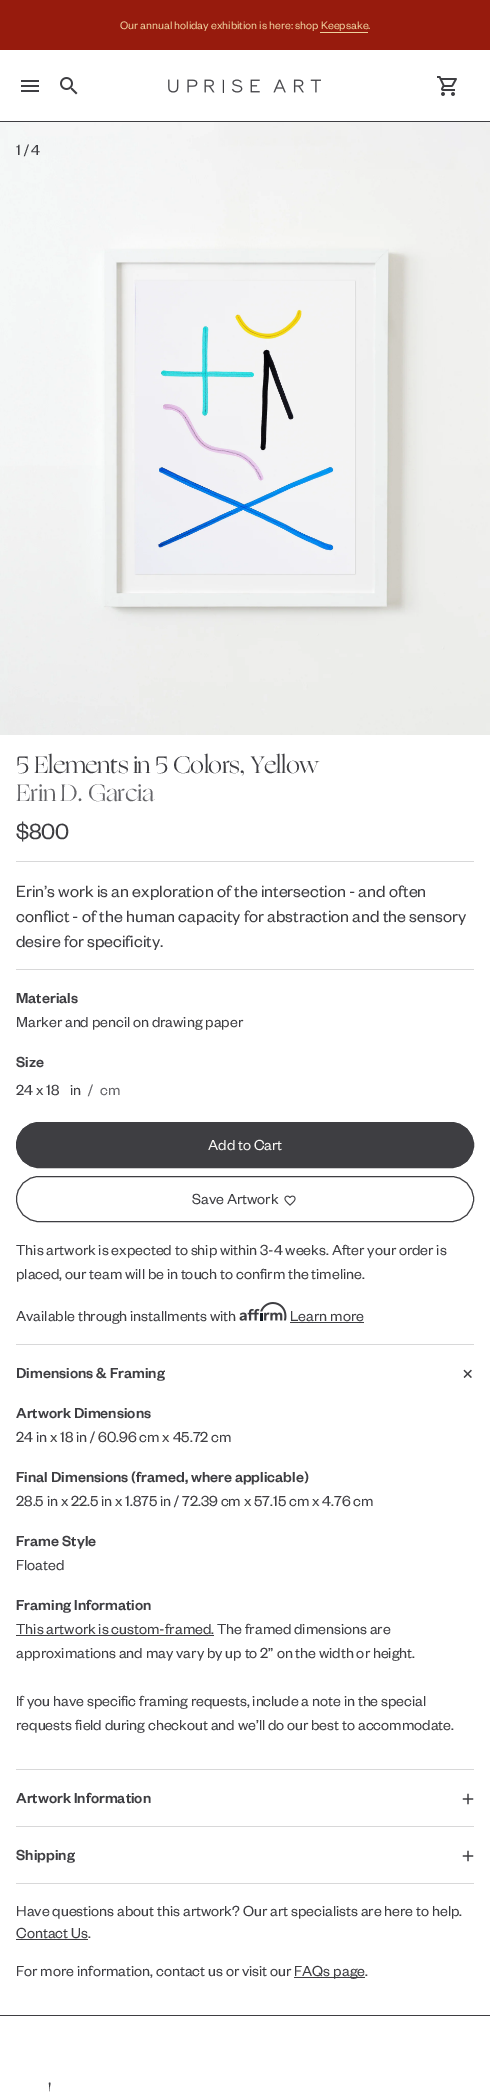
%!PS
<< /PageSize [490 2096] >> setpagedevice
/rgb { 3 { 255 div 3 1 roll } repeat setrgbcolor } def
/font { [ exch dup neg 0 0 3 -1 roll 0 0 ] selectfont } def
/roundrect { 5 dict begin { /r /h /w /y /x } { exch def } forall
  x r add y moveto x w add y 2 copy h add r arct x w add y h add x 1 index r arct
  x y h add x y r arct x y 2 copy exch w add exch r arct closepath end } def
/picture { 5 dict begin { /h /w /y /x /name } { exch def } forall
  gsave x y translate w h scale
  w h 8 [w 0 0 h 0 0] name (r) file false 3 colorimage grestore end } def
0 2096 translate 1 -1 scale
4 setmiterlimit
255 255 255 rgb
0 0 490 2096 rectfill
[
  [0 0 490 50 151 27 13]
  [320 32 48 1 238 208 156]
  [0 121 490 1 62 62 66]
] { aload pop rgb rectfill } forall
(img/1.rgb) 21 80 18 12 picture
(img/2.rgb) 60 77 18 18 picture
(img/3.rgb) 168 79 153 14 picture
(img/4.rgb) 437 76 20 20 picture
0 2015 490 1 rectfill
(img/5.rgb) 0 122 490 613 picture
[
  [16 861 458 1 216 216 217]
  [16 969 458 1 216 216 217]
  [16 1344 458 1 216 216 217]
] { aload pop rgb rectfill } forall
62 62 66 rgb
16.5 1122.5 457 45 22.5 roundrect gsave fill grestore
stroke
16.5 1176.5 457 45 22.5 roundrect stroke
(img/6.rgb) 284 1195 12 11 picture
(img/7.rgb) 239 1302 48 19 picture
290 1322 74 1 rectfill
216 216 217 rgb
16 1769 458 1 rectfill
(img/8.rgb) 463 1369 9 9 picture
62 62 66 rgb
16 1635 198 1 rectfill
216 216 217 rgb
16 1826 458 1 rectfill
(img/9.rgb) 462 1793 12 12 picture
16 1883 458 1 rectfill
(img/9.rgb) 462 1850 12 12 picture
62 62 66 rgb
16 1939 72 1 rectfill
294 1977 71 1 rectfill
/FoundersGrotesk-Regular 12 font
238 208 156 rgb
120 29 moveto (Our annual holiday exhibition is here: shop Keepsake.) show
/FoundersGrotesk-Regular 16 font
62 62 66 rgb
16 155 moveto (1 / 4) show
/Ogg-Regular 24 font
16 773 moveto -0.5 0 (5 Elements in 5 Colors, Yellow) ashow
100 100 104 rgb
16 801 moveto -0.5 0 (Erin D. Garcia) ashow
/FoundersGrotesk-Regular 24 font
62 62 66 rgb
16 839 moveto -0.5 0 ($800) ashow
/FoundersGrotesk-Regular 18 font
[
  [(Erin’s work is an exploration of the intersection - and often) 16 897]
  [(conflict - of the human capacity for abstraction and the sensory) 16 922]
  [(desire for specificity.) 16 947]
] { aload pop moveto show } forall
/FoundersGrotesk-Medium 16 font
16 1003 moveto (Materials) show
/FoundersGrotesk-Regular 16 font
16 1027 moveto (Marker and pencil on drawing paper) show
/FoundersGrotesk-Medium 16 font
16 1067 moveto (Size) show
/FoundersGrotesk-Regular 16 font
16 1095 moveto (24 x 18) show
70 1095 moveto (in) show
100 100 104 rgb
88 1095 moveto (/) show
100 1095 moveto (cm) show
250 249 246 rgb
208 1150 moveto (Add to Cart) show
62 62 66 rgb
[
  [(Save Artwork) 192 1204]
  [(This artwork is expected to ship within 3-4 weeks. After your order is) 16 1255]
  [(placed, our team will be in touch to confirm the timeline.) 16 1279]
  [(Available through installments with) 16 1321]
  [(Learn more) 290 1321]
] { aload pop moveto show } forall
/FoundersGrotesk-Medium 16 font
16 1378 moveto (Dimensions & Framing) show
16 1418 moveto (Artwork Dimensions) show
/FoundersGrotesk-Regular 16 font
16 1442 moveto (24 in x 18 in / 60.96 cm x 45.72 cm) show
/FoundersGrotesk-Medium 16 font
16 1482 moveto (Final Dimensions \(framed, where applicable\)) show
/FoundersGrotesk-Regular 16 font
16 1506 moveto (28.5 in x 22.5 in x 1.875 in / 72.39 cm x 57.15 cm x 4.76 cm) show
/FoundersGrotesk-Medium 16 font
16 1546 moveto (Frame Style) show
/FoundersGrotesk-Regular 16 font
16 1570 moveto (Floated) show
/FoundersGrotesk-Medium 16 font
16 1610 moveto (Framing Information) show
/FoundersGrotesk-Regular 16 font
[
  [(This artwork is custom-framed. The framed dimensions are) 16 1634]
  [(approximations and may vary by up to 2” on the width or height.) 16 1658]
  [(If you have specific framing requests, include a note in the special) 16 1706]
  [(requests field during checkout and we’ll do our best to accommodate.) 16 1730]
] { aload pop moveto show } forall
/FoundersGrotesk-Medium 16 font
16 1803 moveto (Artwork Information) show
16 1860 moveto (Shipping) show
/FoundersGrotesk-Regular 16 font
[
  [(Have questions about this artwork? Our art specialists are here to help.) 16 1916]
  [(Contact Us.) 16 1938]
  [(For more information, contact us or visit our) 16 1976]
  [(FAQs page.) 294 1976]
] { aload pop moveto show } forall
/Ogg-Regular 32 font
47 2105 moveto (') show
showpage
